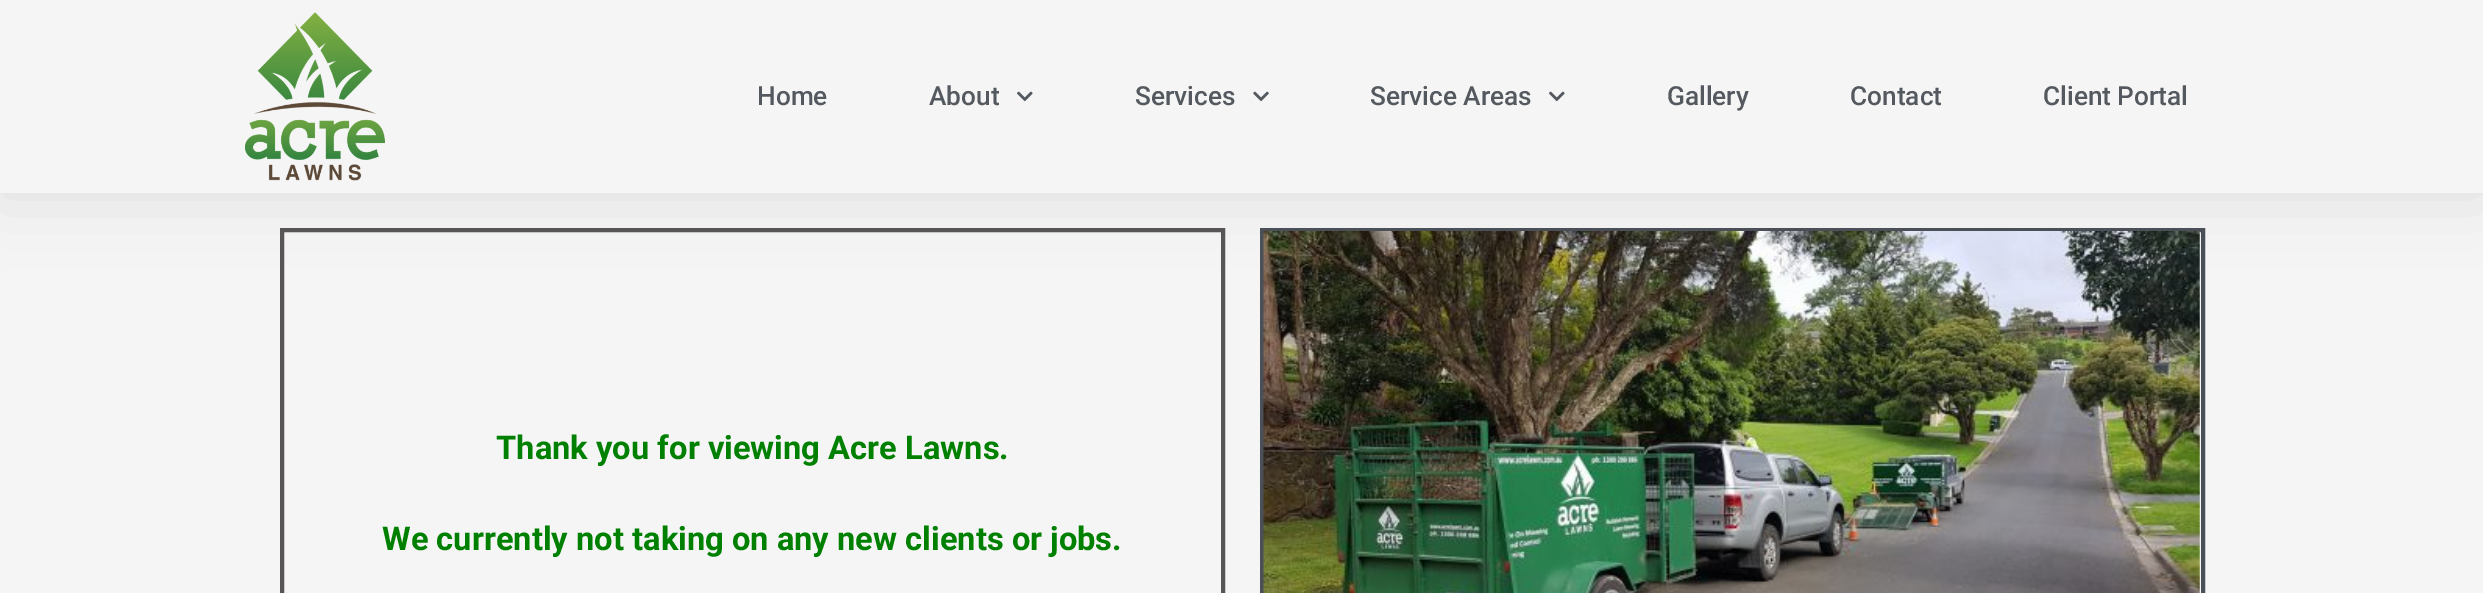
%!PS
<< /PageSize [2483 593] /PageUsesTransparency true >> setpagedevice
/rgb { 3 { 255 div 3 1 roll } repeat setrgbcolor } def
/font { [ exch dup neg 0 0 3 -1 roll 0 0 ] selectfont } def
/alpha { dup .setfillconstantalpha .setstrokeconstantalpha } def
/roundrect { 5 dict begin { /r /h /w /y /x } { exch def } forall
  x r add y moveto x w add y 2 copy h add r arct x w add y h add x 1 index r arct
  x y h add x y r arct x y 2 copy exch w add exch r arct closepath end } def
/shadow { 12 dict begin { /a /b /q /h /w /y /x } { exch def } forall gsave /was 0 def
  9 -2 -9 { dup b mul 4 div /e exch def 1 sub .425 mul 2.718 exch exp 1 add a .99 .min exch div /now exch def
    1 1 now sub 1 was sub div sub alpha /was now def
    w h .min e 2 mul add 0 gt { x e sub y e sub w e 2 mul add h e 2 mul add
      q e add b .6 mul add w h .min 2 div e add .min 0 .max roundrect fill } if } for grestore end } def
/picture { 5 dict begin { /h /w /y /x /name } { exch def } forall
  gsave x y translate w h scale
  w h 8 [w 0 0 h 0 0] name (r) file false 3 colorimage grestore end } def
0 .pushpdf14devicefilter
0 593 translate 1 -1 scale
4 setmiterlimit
245 245 245 rgb
0 0 2483 593 rectfill
gsave
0 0 moveto 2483 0 lineto 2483 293 lineto 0 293 lineto closepath 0 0 moveto 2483 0 lineto 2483 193 lineto 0 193 lineto closepath eoclip newpath
0 0 0 rgb
0 0 2483 193 0 33 0.1 shadow
grestore
(img/1.rgb) 245 12 140 169 picture
(img/2.rgb) 1017 91 16 11 picture
(img/3.rgb) 1253 91 16 11 picture
(img/2.rgb) 1549 91 16 11 picture
87 85 85 rgb
4 setlinewidth
282 230 941 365 rectstroke
75 79 88 rgb
1262 230 941 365 rectstroke
(img/4.rgb) 1263 231 937 362 picture
/Roboto-Medium 26.25 font
84 89 95 rgb
[
  [(Home) 757 105]
  [(About) 929 105]
  [(Services) 1135 105]
  [(Service Areas) 1370 105]
  [(Gallery) 1667 105]
  [(Contact) 1850 105]
  [(Client Portal) 2043 105]
] { aload pop moveto show } forall
/Roboto-Bold 32.7 font
0 128 0 rgb
496 459 moveto (Thank you for viewing Acre Lawns.) show
382 550 moveto (We currently not taking on any new clients or jobs.) show
.poppdf14devicefilter showpage
